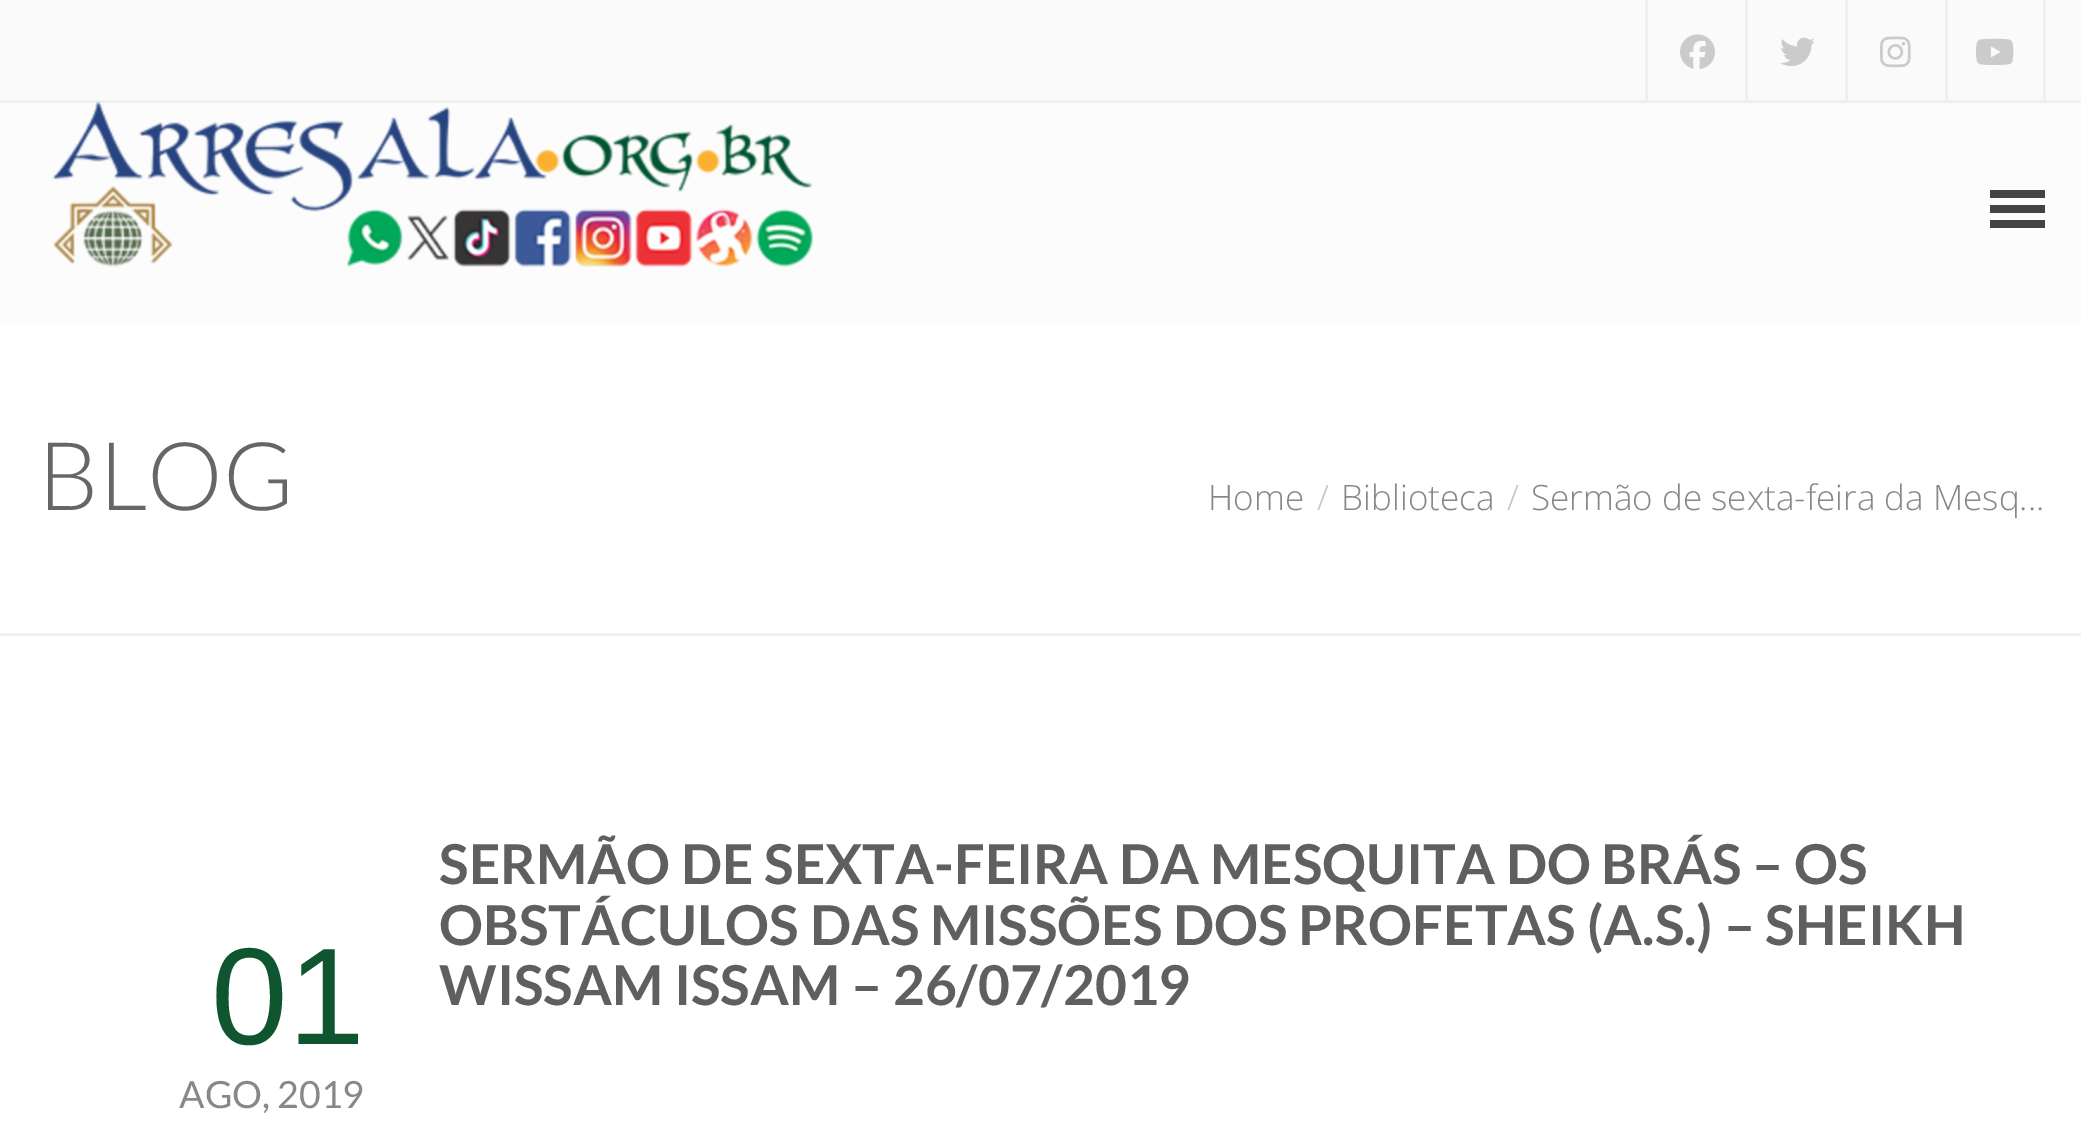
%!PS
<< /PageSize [2081 1129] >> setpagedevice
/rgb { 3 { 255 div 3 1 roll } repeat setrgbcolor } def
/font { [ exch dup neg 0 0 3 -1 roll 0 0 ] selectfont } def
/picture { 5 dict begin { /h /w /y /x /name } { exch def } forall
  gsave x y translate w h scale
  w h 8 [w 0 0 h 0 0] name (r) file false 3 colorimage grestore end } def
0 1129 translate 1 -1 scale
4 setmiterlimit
255 255 255 rgb
0 0 2081 1129 rectfill
[
  [0 0 2081 100 250 250 250]
  [0 100 2081 3 239 239 239]
  [1645 0 3 105 239 239 239]
] { aload pop rgb rectfill } forall
(img/1.rgb) 1680 34 35 35 picture
1745 0 3 105 rectfill
(img/2.rgb) 1780 37 35 29 picture
1845 0 3 105 rectfill
(img/3.rgb) 1880 36 31 32 picture
2043 0 3 105 rectfill
1945 0 3 105 rectfill
(img/4.rgb) 1976 38 38 27 picture
252 252 252 rgb
0 103 2081 220 rectfill
(img/5.rgb) 52 101 762 166 picture
[
  [1990 190 55 8 68 68 68]
  [1990 205 55 8 68 68 68]
  [1990 220 55 8 68 68 68]
  [0 633 2081 3 240 240 240]
] { aload pop rgb rectfill } forall
/Lato-Light 95 font
102 102 102 rgb
38 510 moveto (BLOG) show
/OpenSans-Light 35 font
136 136 136 rgb
1208 510 moveto (Home) show
196 196 196 rgb
1317 510 moveto (/) show
136 136 136 rgb
1341 510 moveto (Biblioteca) show
196 196 196 rgb
1507 510 moveto (/) show
136 136 136 rgb
1531 510 moveto (Sermão de sexta-feira da Mesq...) show
/Lato-Bold 55 font
95 95 95 rgb
[
  [(SERMÃO DE SEXTA-FEIRA DA MESQUITA DO BRÁS – OS) 439 884]
  [(OBSTÁCULOS DAS MISSÕES DOS PROFETAS \(A.S.\) – SHEIKH) 439 945]
  [(WISSAM ISSAM – 26/07/2019) 439 1005]
] { aload pop moveto show } forall
/LiberationSans-Regular 138 font
15 86 48 rgb
211 1044 moveto (01) show
/Lato-Regular 37.5 font
136 136 136 rgb
179 1108 moveto (AGO, 2019) show
showpage
